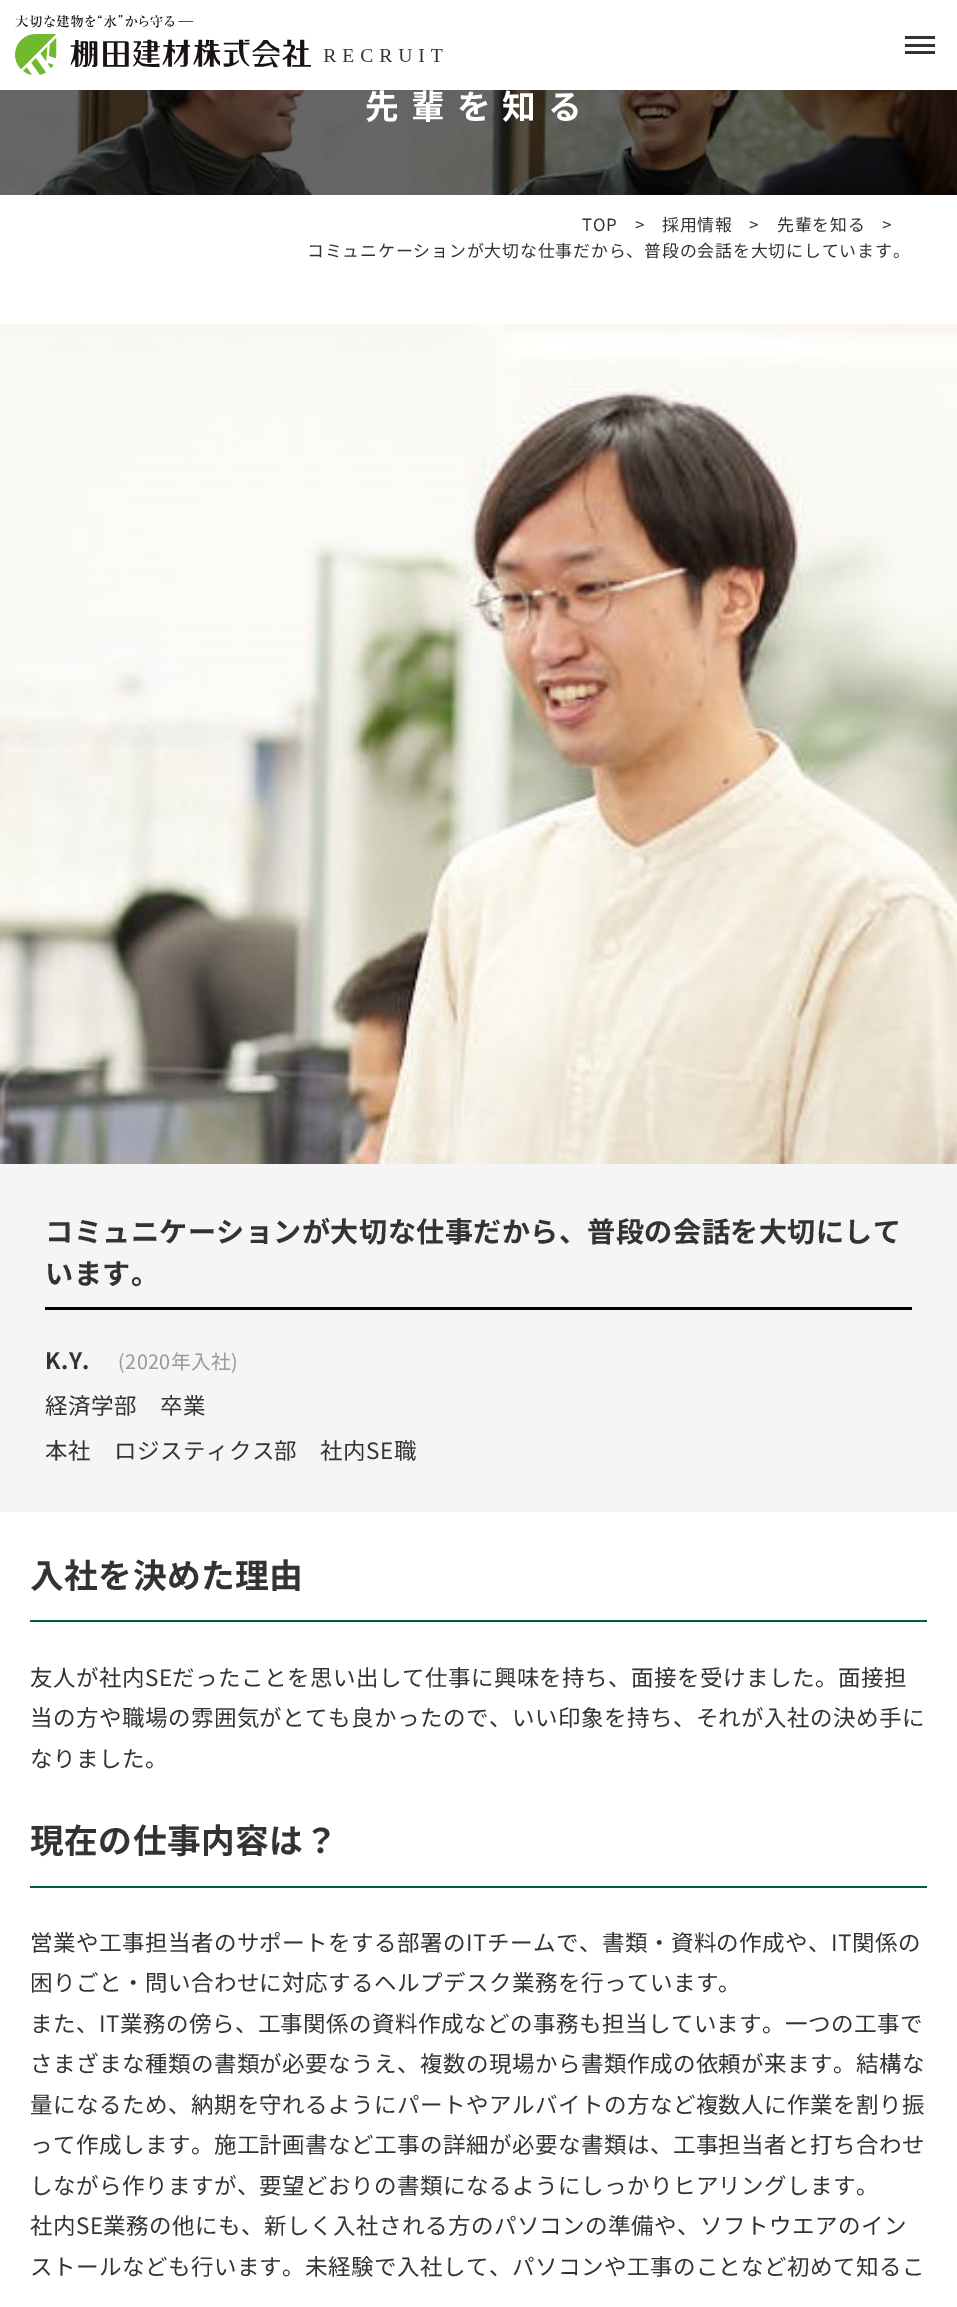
%!PS
<< /PageSize [957 2307] >> setpagedevice
/rgb { 3 { 255 div 3 1 roll } repeat setrgbcolor } def
/font { [ exch dup neg 0 0 3 -1 roll 0 0 ] selectfont } def
/picture { 5 dict begin { /h /w /y /x /name } { exch def } forall
  gsave x y translate w h scale
  w h 8 [w 0 0 h 0 0] name (r) file false 3 colorimage grestore end } def
0 2307 translate 1 -1 scale
4 setmiterlimit
255 255 255 rgb
0 0 957 2307 rectfill
(img/1.rgb) 15 15 428 60 picture
[
  [905 44 30 3 51 51 51]
  [905 36 30 3 51 51 51]
  [905 51 30 3 51 51 51]
] { aload pop rgb rectfill } forall
(img/2.rgb) 0 90 957 105 picture
245 245 245 rgb
0 1164 957 348 rectfill
(img/3.rgb) 0 324 957 840 picture
[
  [45 1307 867 3 0 0 0]
  [30 1620 897 2 0 90 73]
  [30 1886 897 2 0 90 73]
] { aload pop rgb rectfill } forall
/NotoSansJP-Bold 33.75 font
255 255 255 rgb
365 119 moveto 12 0 (先輩を知る) ashow
/NotoSansJP-Regular 16.9 font
51 51 51 rgb
582 231 moveto 0.85 0 (TOP) ashow
635 231 moveto 0.85 0 (>) ashow
662 231 moveto 0.85 0 (採用情報) ashow
749 231 moveto 0.85 0 (>) ashow
777 231 moveto 0.85 0 (先輩を知る) ashow
882 231 moveto 0.85 0 (>) ashow
307 257 moveto 0.85 0 (コミュニケーションが大切な仕事だから、普段の会話を大切にしています。) ashow
/NotoSansJP-Bold 28.1 font
45 1242 moveto 0.45 0 (コミュニケーションが大切な仕事だから、普段の会話を大切にして) ashow
45 1284 moveto 0.45 0 (います。) ashow
/NotoSansJP-Bold 22.5 font
45 1369 moveto 0.45 0 (K.Y.) ashow
/NotoSansJP-Regular 19.75 font
153 153 153 rgb
118 1369 moveto 0.45 0 (\(2020年入社\)) ashow
/NotoSansJP-Regular 22.5 font
51 51 51 rgb
45 1414 moveto 0.45 0 (経済学部　卒業) ashow
45 1459 moveto 0.45 0 (本社　ロジスティクス部　社内SE職) ashow
/NotoSansJP-Bold 33.75 font
30 1588 moveto 0.45 0 (入社を決めた理由) ashow
/NotoSansJP-Regular 22.5 font
30 1686 moveto 0.45 0 (友人が社内SEだったことを思い出して仕事に興味を持ち、面接を受けました。面接担) ashow
30 1726 moveto 0.45 0 (当の方や職場の雰囲気がとても良かったので、いい印象を持ち、それが入社の決め手に) ashow
30 1767 moveto 0.45 0 (なりました。) ashow
/NotoSansJP-Bold 33.75 font
30 1853 moveto 0.45 0 (現在の仕事内容は？) ashow
/NotoSansJP-Regular 22.5 font
30 1951 moveto 0.45 0 (営業や工事担当者のサポートをする部署のITチームで、書類・資料の作成や、IT関係の) ashow
30 1991 moveto 0.45 0 (困りごと・問い合わせに対応するヘルプデスク業務を行っています。) ashow
30 2032 moveto 0.45 0 (また、IT業務の傍ら、工事関係の資料作成などの事務も担当しています。一つの工事で) ashow
30 2072 moveto 0.45 0 (さまざまな種類の書類が必要なうえ、複数の現場から書類作成の依頼が来ます。結構な) ashow
30 2113 moveto 0.45 0 (量になるため、納期を守れるようにパートやアルバイトの方など複数人に作業を割り振) ashow
30 2153 moveto 0.45 0 (って作成します。施工計画書など工事の詳細が必要な書類は、工事担当者と打ち合わせ) ashow
30 2194 moveto 0.45 0 (しながら作りますが、要望どおりの書類になるようにしっかりヒアリングします。) ashow
30 2234 moveto 0.45 0 (社内SE業務の他にも、新しく入社される方のパソコンの準備や、ソフトウエアのイン) ashow
30 2275 moveto 0.45 0 (ストールなども行います。未経験で入社して、パソコンや工事のことなど初めて知るこ) ashow
showpage
